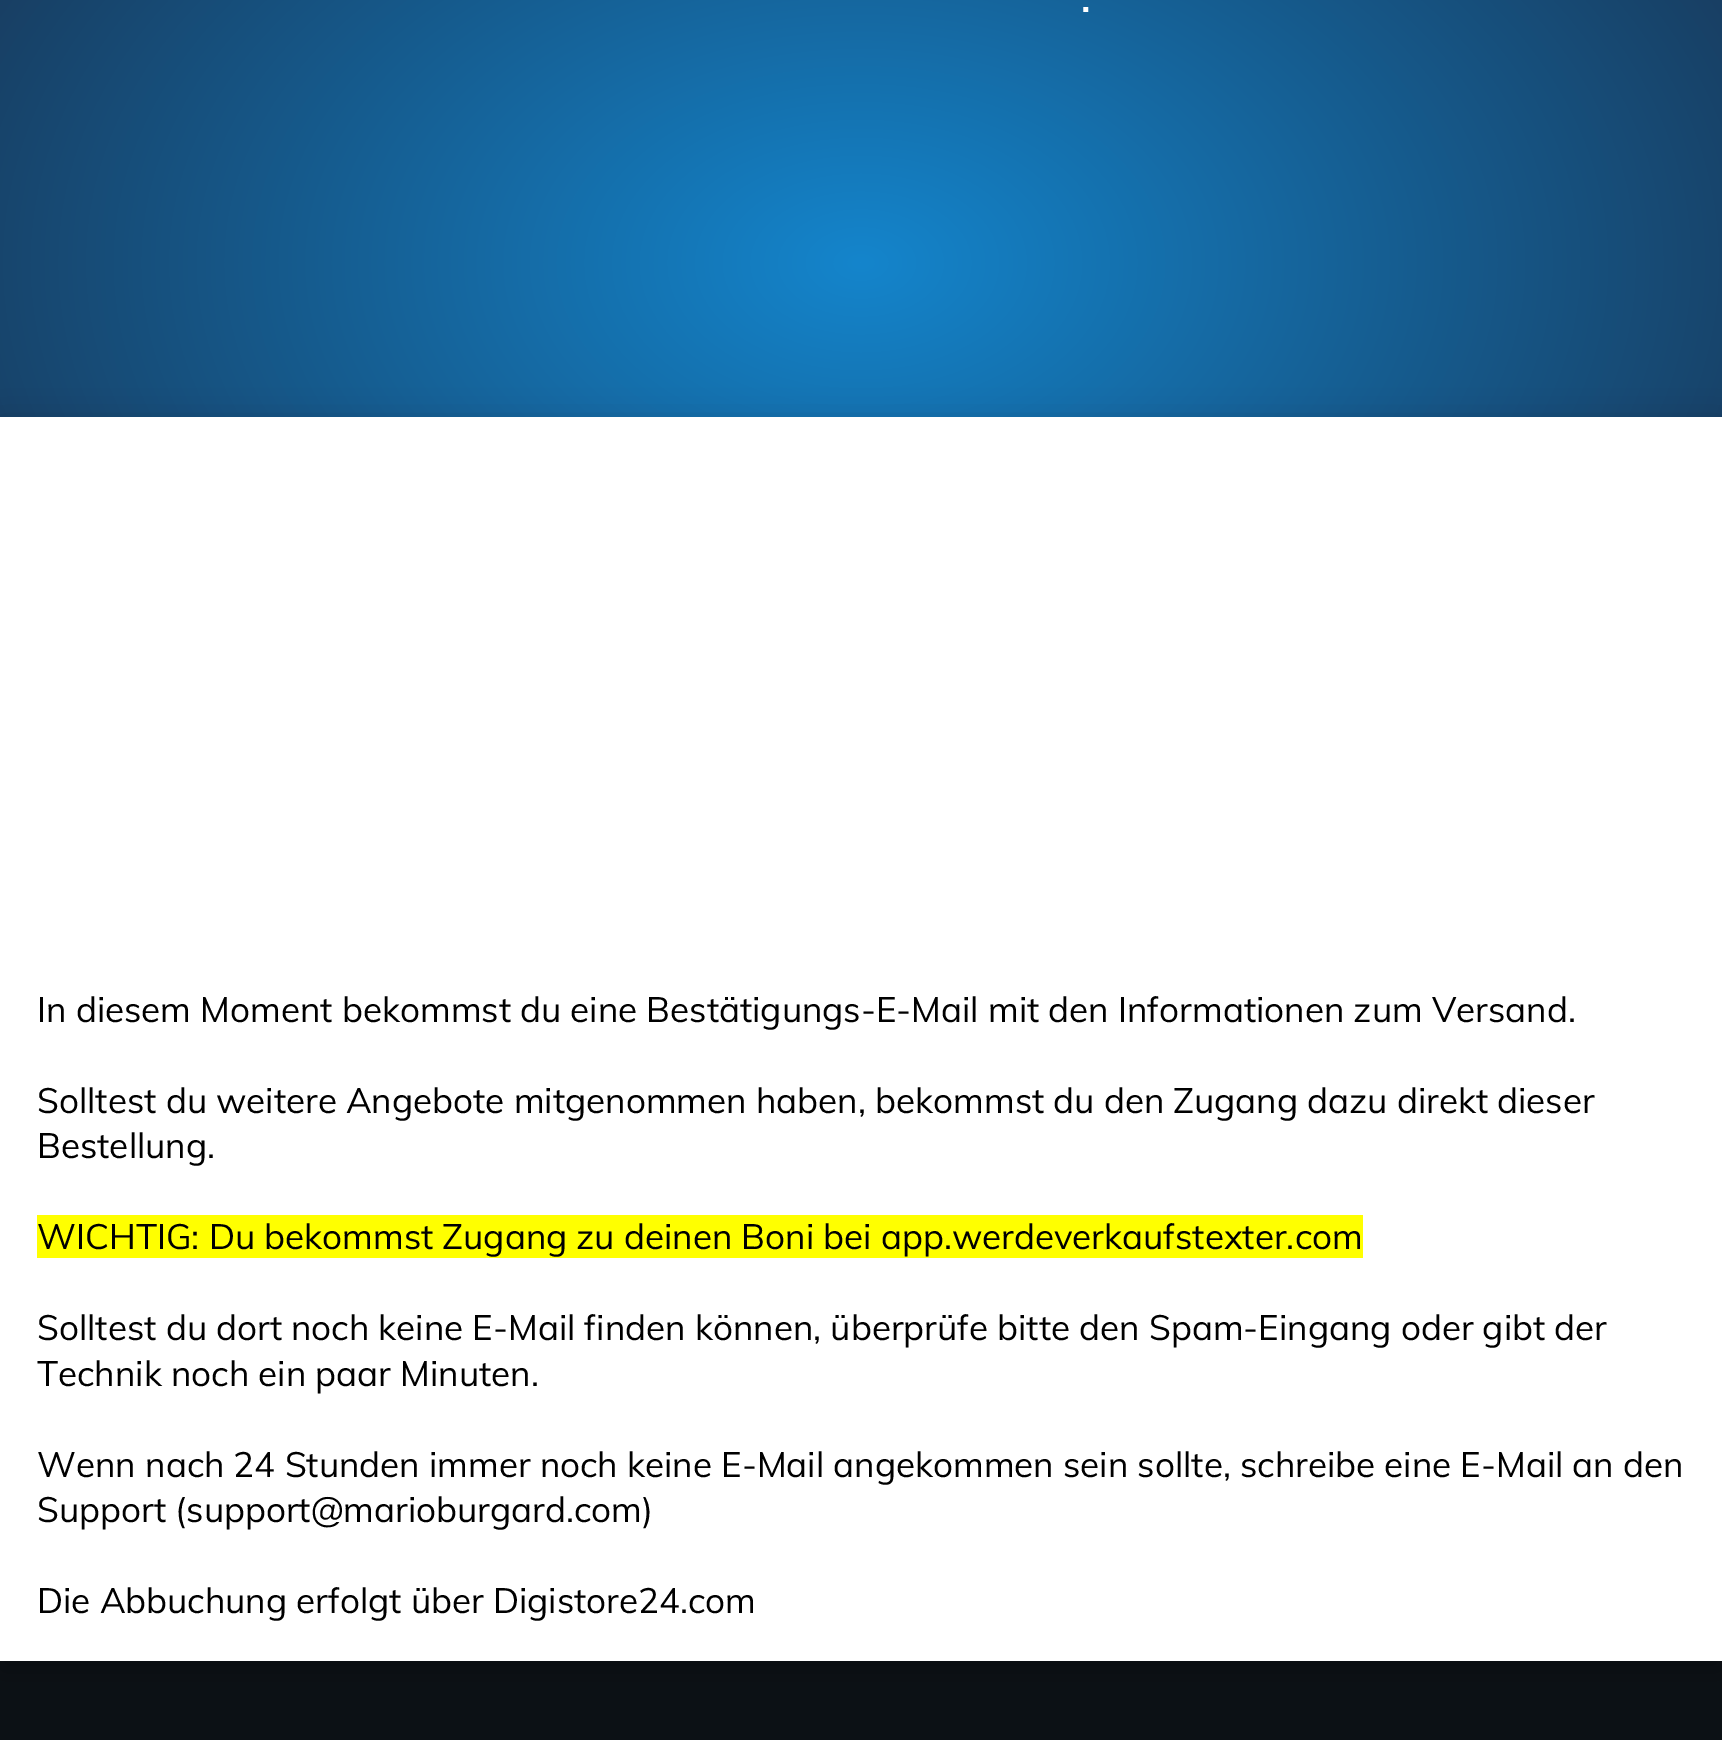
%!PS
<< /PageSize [1722 1740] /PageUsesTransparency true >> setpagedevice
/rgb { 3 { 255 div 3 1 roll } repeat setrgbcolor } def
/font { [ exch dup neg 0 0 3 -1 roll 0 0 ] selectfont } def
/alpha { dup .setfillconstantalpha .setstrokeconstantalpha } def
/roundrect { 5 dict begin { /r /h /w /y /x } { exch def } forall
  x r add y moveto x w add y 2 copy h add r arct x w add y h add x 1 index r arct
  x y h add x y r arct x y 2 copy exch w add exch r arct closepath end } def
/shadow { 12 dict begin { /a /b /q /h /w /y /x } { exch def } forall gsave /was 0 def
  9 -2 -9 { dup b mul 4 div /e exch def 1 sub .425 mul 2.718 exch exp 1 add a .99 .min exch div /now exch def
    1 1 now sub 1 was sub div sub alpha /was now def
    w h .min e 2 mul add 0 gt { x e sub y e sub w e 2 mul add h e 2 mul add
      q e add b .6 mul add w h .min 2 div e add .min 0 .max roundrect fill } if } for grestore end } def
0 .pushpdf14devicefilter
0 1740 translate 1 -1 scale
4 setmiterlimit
255 255 255 rgb
0 0 1722 1740 rectfill
gsave 0 0 moveto 1722 0 lineto 1722 417 lineto 0 417 lineto closepath clip newpath 861 263 translate 1218 788 scale
<< /ShadingType 3 /ColorSpace /DeviceRGB /Coords [0 0 0 0 0 1] /Extend [true true] /Function << /FunctionType 2 /Domain [0 1] /C0 [0.078 0.522 0.8] /C1 [0.098 0.169 0.278] /N 1 >> >> shfill grestore
12 17 21 rgb
0 1661 1722 79 rectfill
0 0 0 rgb
0 425 1722 1245 0 16.5 0.22 shadow
255 255 255 rgb
0 417 1722 1244 rectfill
255 255 0 rgb
37 1215 1326 43 rectfill
/Muli-Regular 49 font
255 255 255 rgb
1080 12 moveto (.) show
/Muli-Regular 35 font
0 0 0 rgb
[
  [(In diesem Moment bekommst du eine Bestätigungs-E-Mail mit den Informationen zum Versand.) 37 1022]
  [(Solltest du weitere Angebote mitgenommen haben, bekommst du den Zugang dazu direkt dieser) 37 1113]
  [(Bestellung.) 37 1158]
  [(WICHTIG: Du bekommst Zugang zu deinen Boni bei app.werdeverkaufstexter.com) 37 1249]
  [(Solltest du dort noch keine E-Mail finden können, überprüfe bitte den Spam-Eingang oder gibt der) 37 1340]
  [(Technik noch ein paar Minuten.) 37 1386]
  [(Wenn nach 24 Stunden immer noch keine E-Mail angekommen sein sollte, schreibe eine E-Mail an den) 37 1477]
  [(Support \(support@marioburgard.com\)) 37 1522]
  [(Die Abbuchung erfolgt über Digistore24.com) 37 1613]
] { aload pop moveto show } forall
.poppdf14devicefilter showpage
